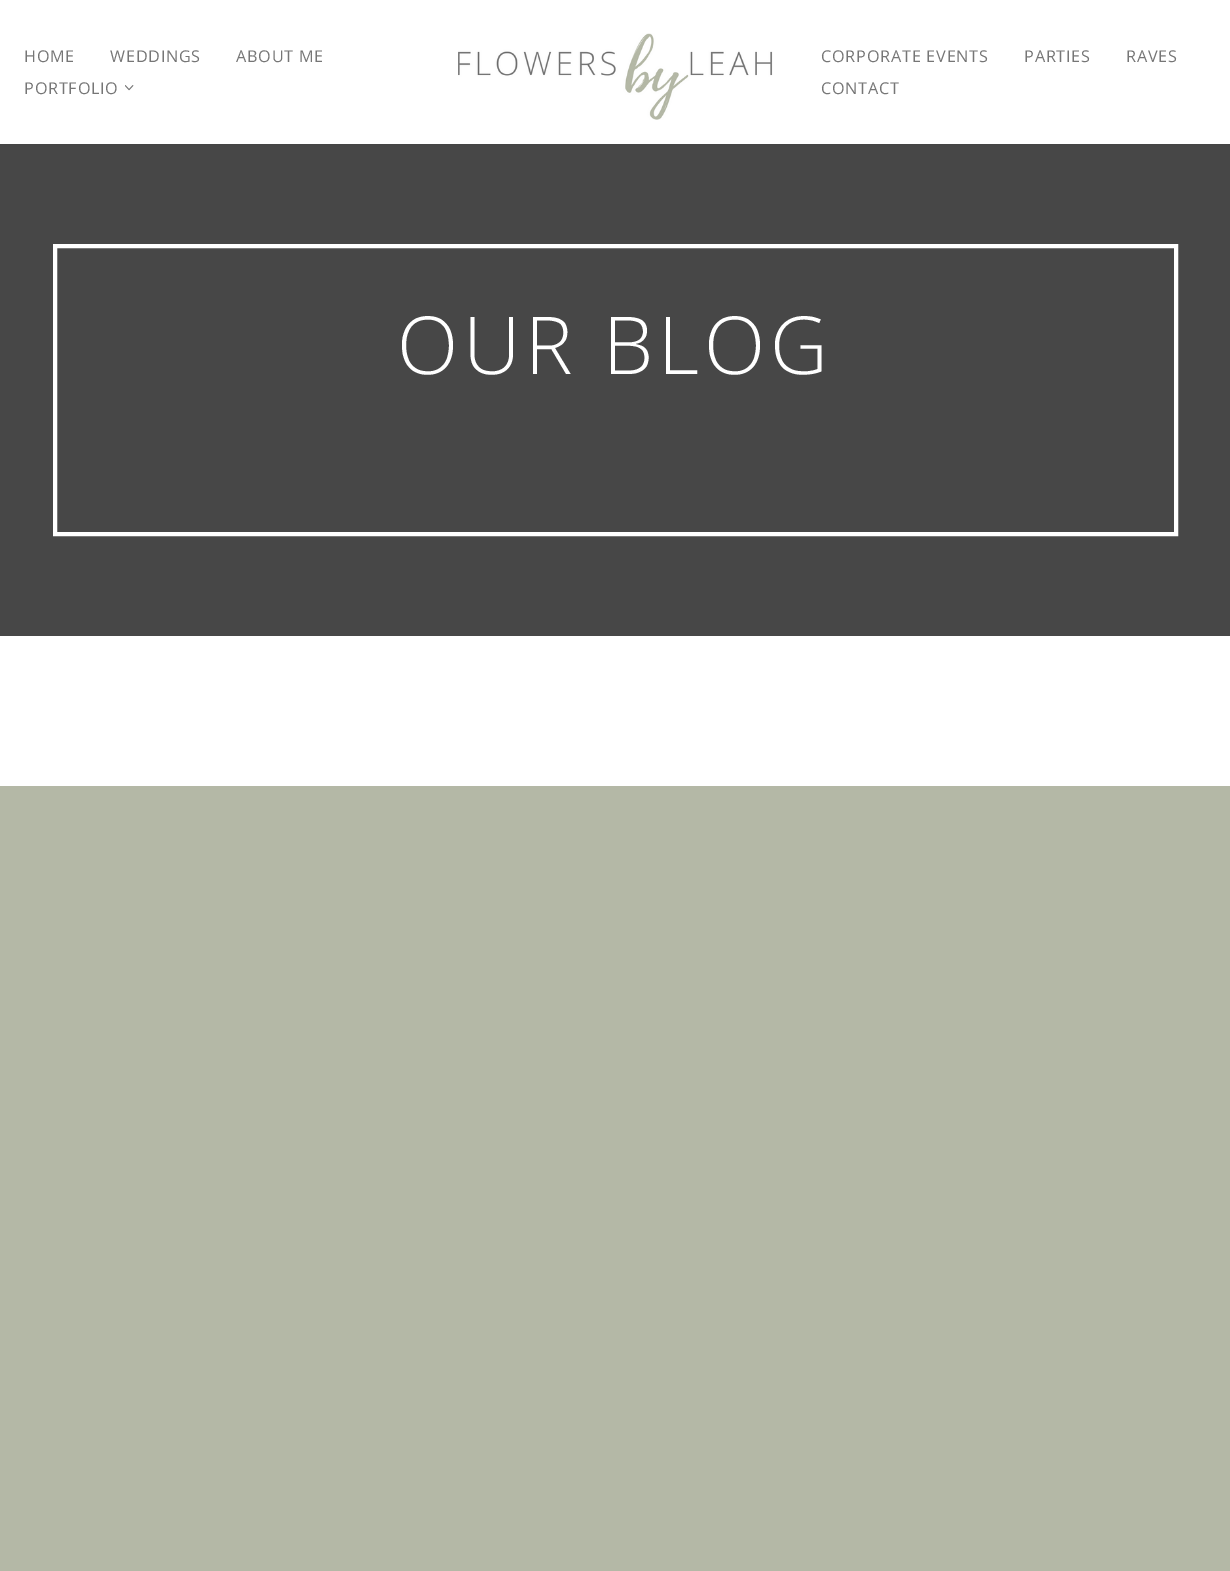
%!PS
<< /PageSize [1230 1571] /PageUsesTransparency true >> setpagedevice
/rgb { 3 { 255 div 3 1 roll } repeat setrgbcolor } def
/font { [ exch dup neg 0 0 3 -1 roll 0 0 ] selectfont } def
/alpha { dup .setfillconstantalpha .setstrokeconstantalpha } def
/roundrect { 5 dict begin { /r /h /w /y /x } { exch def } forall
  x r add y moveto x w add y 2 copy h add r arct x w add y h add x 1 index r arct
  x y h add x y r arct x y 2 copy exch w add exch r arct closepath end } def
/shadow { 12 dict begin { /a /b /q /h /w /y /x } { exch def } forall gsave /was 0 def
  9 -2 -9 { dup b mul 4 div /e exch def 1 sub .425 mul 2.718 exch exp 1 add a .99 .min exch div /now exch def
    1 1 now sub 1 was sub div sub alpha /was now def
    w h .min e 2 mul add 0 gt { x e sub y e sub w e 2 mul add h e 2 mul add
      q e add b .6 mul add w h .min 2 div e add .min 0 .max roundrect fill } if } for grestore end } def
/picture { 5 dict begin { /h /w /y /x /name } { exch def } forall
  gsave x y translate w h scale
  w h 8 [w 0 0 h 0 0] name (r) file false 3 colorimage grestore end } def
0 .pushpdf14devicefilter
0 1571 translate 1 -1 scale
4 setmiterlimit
255 255 255 rgb
0 0 1230 1571 rectfill
0 0 0 rgb
0 -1 1230 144 0 2 0.1 shadow
255 255 255 rgb
0 0 1230 144 rectfill
(img/1.rgb) 125 85 9 6 picture
(img/2.rgb) 458 33 315 87 picture
0.72 alpha
0 0 0 rgb
0 144 1230 492 rectfill
1 alpha
255 255 255 rgb
4 setlinewidth
55 246 1121 288 rectstroke
180 184 166 rgb
0 786 1230 785 rectfill
/OpenSans-Regular 16.25 font
118 118 118 rgb
24 62 moveto 0.75 0 (HOME) ashow
110 62 moveto 0.75 0 (WEDDINGS) ashow
236 62 moveto 0.75 0 (ABOUT ME) ashow
24 94 moveto 0.75 0 (PORTFOLIO) ashow
821 62 moveto 0.75 0 (CORPORATE EVENTS) ashow
1024 62 moveto 0.75 0 (PARTIES) ashow
1126 62 moveto 0.75 0 (RAVES) ashow
821 94 moveto 0.75 0 (CONTACT) ashow
/OpenSans-Light 80 font
255 255 255 rgb
397 374 moveto 4.75 0 (OUR BLOG) ashow
.poppdf14devicefilter showpage
